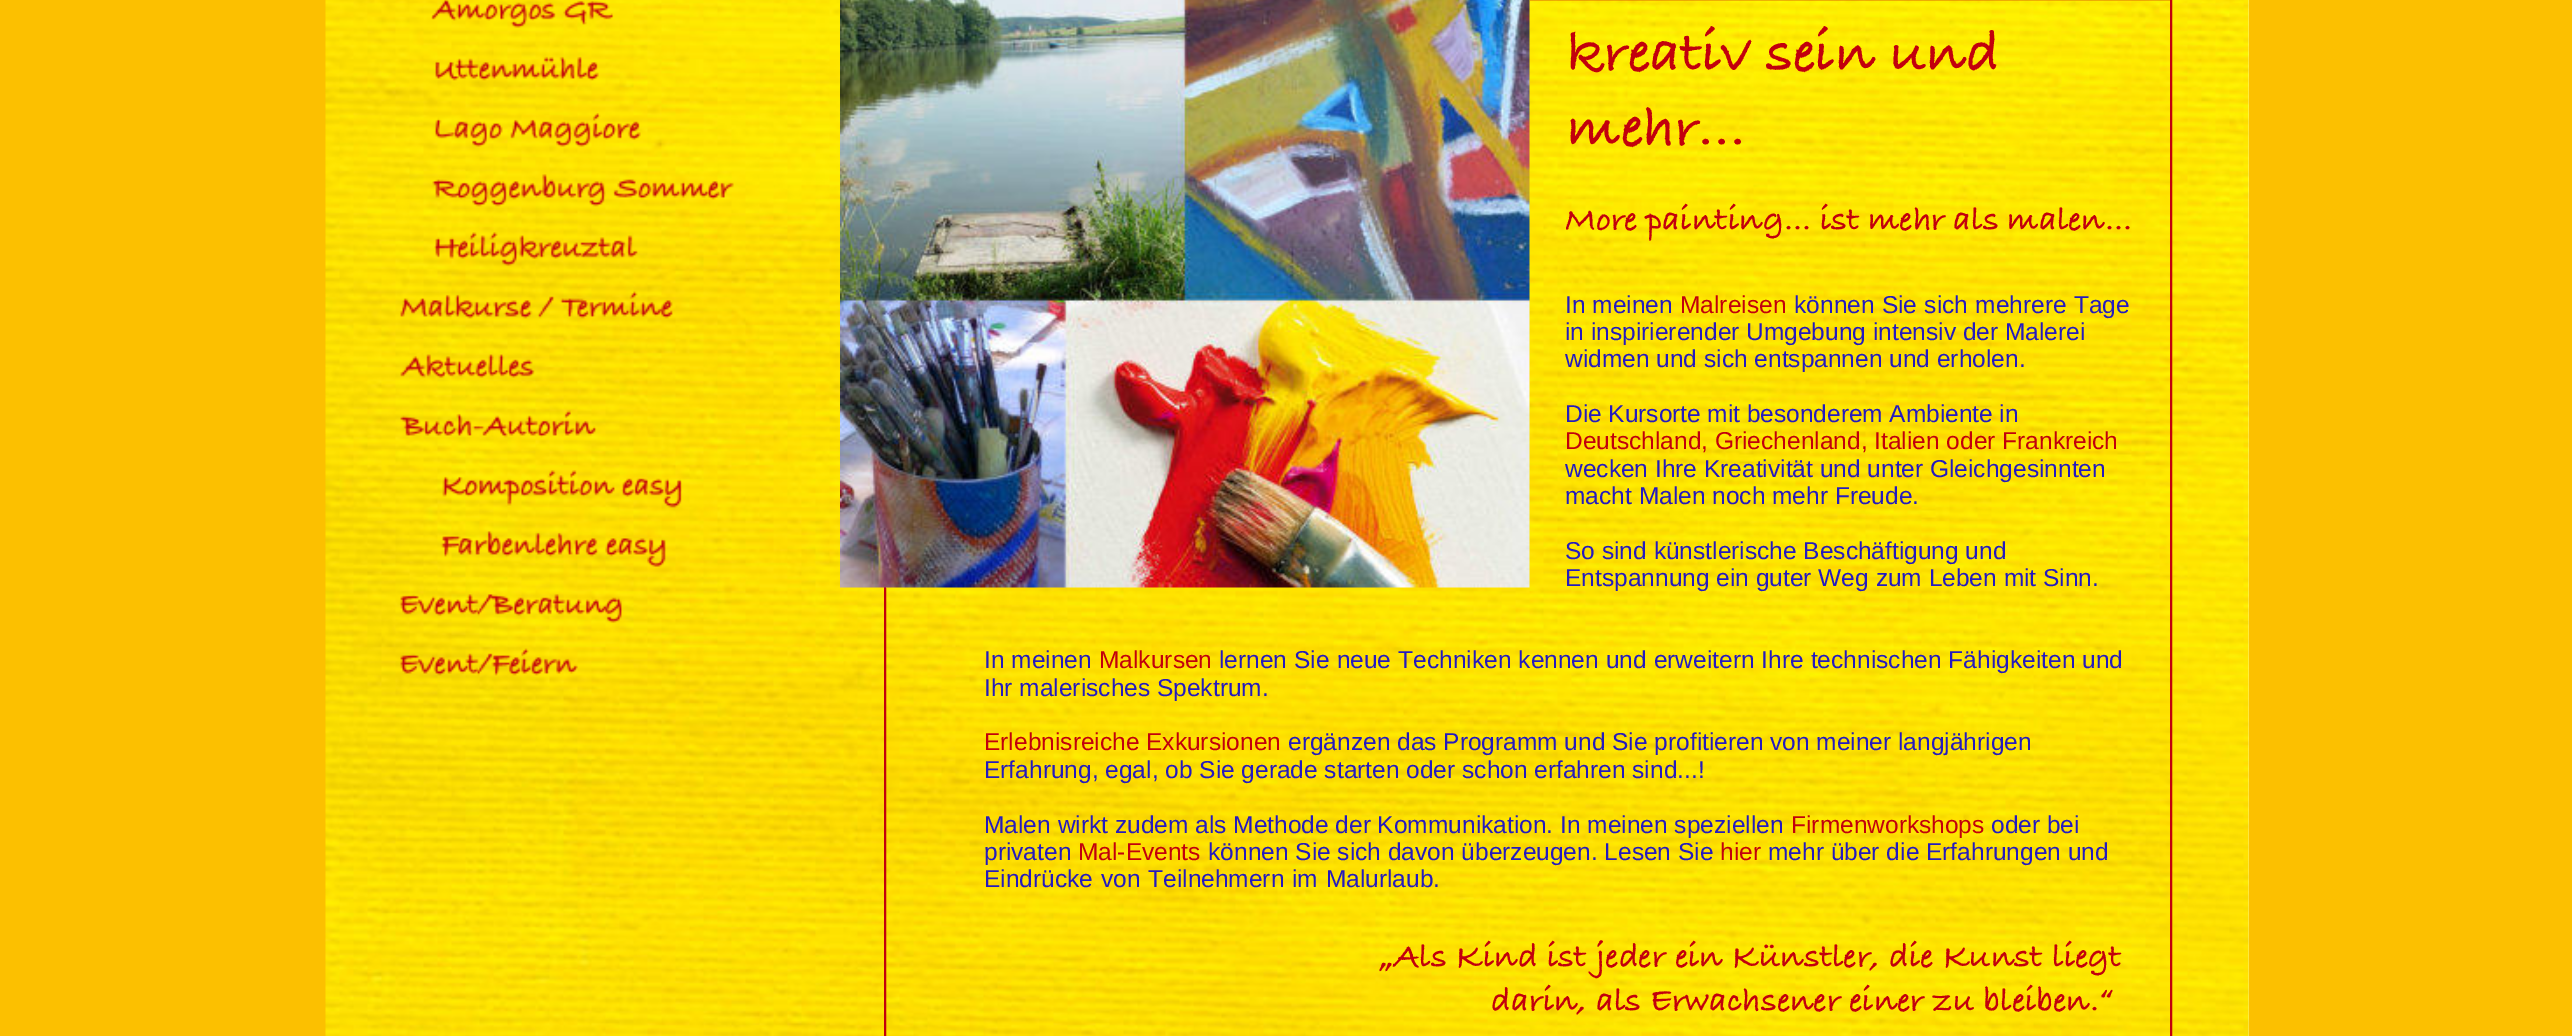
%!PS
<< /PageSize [2572 1036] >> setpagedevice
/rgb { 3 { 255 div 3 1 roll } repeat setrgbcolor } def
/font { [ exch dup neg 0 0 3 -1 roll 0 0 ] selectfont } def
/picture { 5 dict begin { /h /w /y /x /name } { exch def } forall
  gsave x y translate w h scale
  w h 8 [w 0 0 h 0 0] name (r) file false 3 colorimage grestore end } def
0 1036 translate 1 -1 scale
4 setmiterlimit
252 192 0 rgb
0 0 2572 1036 rectfill
(img/1.rgb) 325 0 1924 1036 picture
194 0 13 rgb
2 setlinewidth
885 -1 1286 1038 rectstroke
(img/2.rgb) 431 0 183 28 picture
(img/3.rgb) 435 56 164 25 picture
(img/4.rgb) 434 113 207 34 picture
(img/5.rgb) 432 174 302 33 picture
(img/6.rgb) 434 232 204 34 picture
(img/7.rgb) 400 291 273 28 picture
(img/8.rgb) 400 354 135 24 picture
(img/9.rgb) 400 410 197 28 picture
(img/10.rgb) 442 470 240 38 picture
(img/11.rgb) 440 531 226 36 picture
(img/12.rgb) 400 594 222 29 picture
(img/13.rgb) 400 648 178 28 picture
(img/14.rgb) 840 0 690 588 picture
/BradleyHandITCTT-Bold 59.5 font
1567 69 moveto (kreativ sein und) show
1567 144 moveto (mehr...) show
/BradleyHandITCTT-Bold 35 font
1565 229 moveto -0.5 0 32 (More painting... ist mehr als malen...) widthshow
/LiberationSans-Regular 24.5 font
37 27 191 rgb
1565 313 moveto (In meinen) show
194 0 13 rgb
1680 313 moveto (Malreisen) show
37 27 191 rgb
1794 313 moveto 0.5 0 32 (können Sie sich mehrere Tage) widthshow
1565 340 moveto (in inspirierender Umgebung intensiv der Malerei) show
1565 367 moveto (widmen und sich entspannen und erholen.) show
1565 422 moveto -0.25 0 32 (Die Kursorte mit besonderem Ambiente in) widthshow
194 0 13 rgb
1565 449 moveto (Deutschland, Griechenland, Italien oder Frankreich) show
37 27 191 rgb
[
  [(wecken Ihre Kreativität und unter Gleichgesinnten) 1565 477]
  [(macht Malen noch mehr Freude.) 1565 504]
  [(So sind künstlerische Beschäftigung und) 1565 559]
  [(Entspannung ein guter Weg zum Leben mit Sinn.) 1565 586]
  [(In meinen) 984 668]
] { aload pop moveto show } forall
194 0 13 rgb
1099 668 moveto (Malkursen) show
37 27 191 rgb
1219 668 moveto 0.25 0 32 (lernen Sie neue Techniken kennen und erweitern Ihre technischen Fähigkeiten und) widthshow
984 696 moveto (Ihr malerisches Spektrum.) show
194 0 13 rgb
984 750 moveto (Erlebnisreiche Exkursionen) show
37 27 191 rgb
[
  [(ergänzen das Programm und Sie profitieren von meiner langjährigen) 1288 750]
  [(Erfahrung, egal, ob Sie gerade starten oder schon erfahren sind...!) 984 778]
  [(Malen wirkt zudem als Methode der Kommunikation. In meinen speziellen) 984 833]
] { aload pop moveto show } forall
194 0 13 rgb
1791 833 moveto (Firmenworkshops) show
37 27 191 rgb
1991 833 moveto (oder bei) show
984 860 moveto (privaten) show
194 0 13 rgb
1078 860 moveto (Mal-Events) show
37 27 191 rgb
1208 860 moveto (können Sie sich davon überzeugen. Lesen Sie) show
194 0 13 rgb
1720 860 moveto (hier) show
37 27 191 rgb
1768 860 moveto (mehr über die Erfahrungen und) show
984 887 moveto 1 0 32 (Eindrücke von Teilnehmern im Malurlaub.) widthshow
/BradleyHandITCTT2-Bold 35 font
194 0 13 rgb
1380 966 moveto 0.5 0 32 („Als Kind ist jeder ein Künstler, die Kunst liegt) widthshow
1491 1010 moveto (darin, als Erwachsener einer zu bleiben.“) show
showpage
